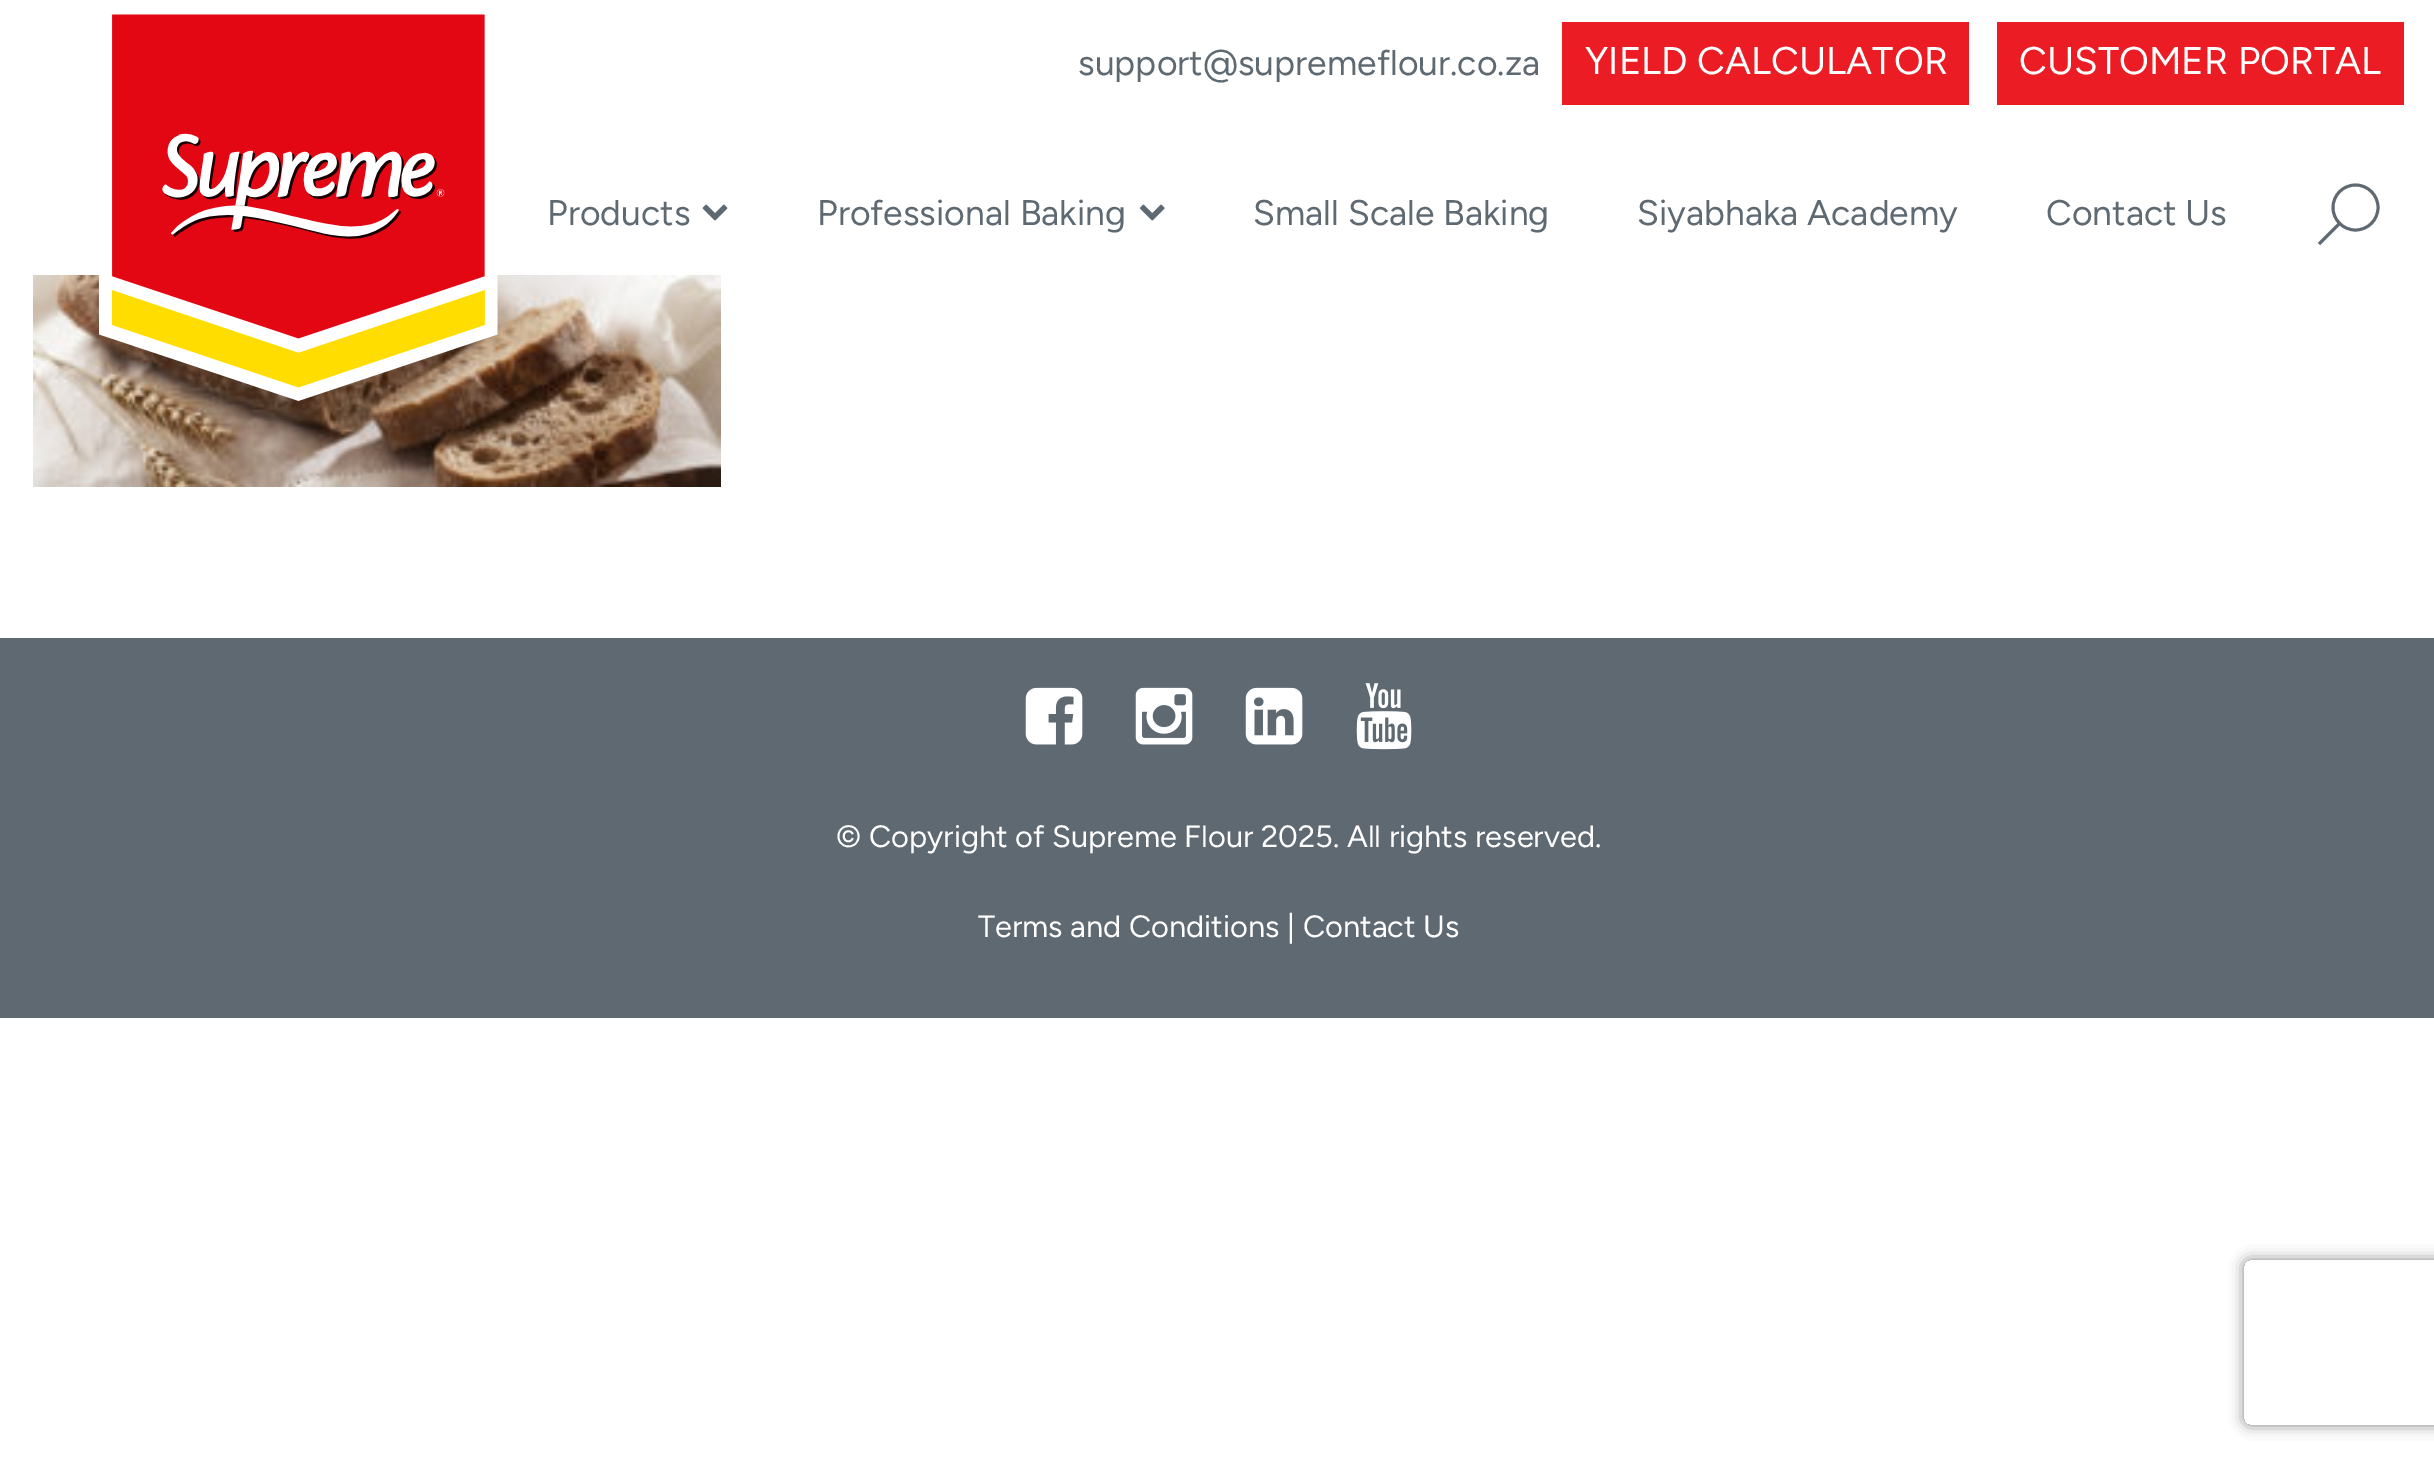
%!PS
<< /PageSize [2434 1462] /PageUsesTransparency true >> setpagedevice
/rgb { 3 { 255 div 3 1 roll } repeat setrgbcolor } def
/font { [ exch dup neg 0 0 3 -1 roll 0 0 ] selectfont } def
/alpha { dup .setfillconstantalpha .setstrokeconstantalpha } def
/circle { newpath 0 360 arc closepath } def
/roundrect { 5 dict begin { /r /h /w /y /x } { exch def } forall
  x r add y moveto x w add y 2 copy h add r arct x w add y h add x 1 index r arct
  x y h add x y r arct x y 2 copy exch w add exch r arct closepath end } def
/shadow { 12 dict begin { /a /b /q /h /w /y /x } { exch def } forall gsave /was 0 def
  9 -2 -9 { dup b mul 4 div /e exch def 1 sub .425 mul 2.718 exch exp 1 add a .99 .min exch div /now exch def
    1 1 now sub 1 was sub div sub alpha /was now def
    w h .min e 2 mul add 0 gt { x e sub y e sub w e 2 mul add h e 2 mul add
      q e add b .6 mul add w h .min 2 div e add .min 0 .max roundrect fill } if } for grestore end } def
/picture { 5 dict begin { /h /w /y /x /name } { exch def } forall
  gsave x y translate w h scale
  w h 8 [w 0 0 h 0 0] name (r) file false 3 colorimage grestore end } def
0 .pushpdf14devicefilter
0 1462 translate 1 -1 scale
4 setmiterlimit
255 255 255 rgb
0 0 2434 1462 rectfill
(img/4.rgb) 33 275 688 212 picture
(img/1.rgb) 99 14 399 387 picture
235 28 35 rgb
1562 22 407 83 rectfill
1997 22 407 83 rectfill
(img/2.rgb) 702 204 26 17 picture
(img/3.rgb) 1139 204 26 17 picture
96 105 114 rgb
2.9 setlinewidth
2355.5 207.5 22.5 circle stroke
2340 223 moveto 2319 244 lineto stroke
95 105 114 rgb
0 638 2434 380 rectfill
(img/5.rgb) 1025 687 58 58 picture
(img/6.rgb) 1135 687 58 58 picture
(img/7.rgb) 1245 687 58 58 picture
(img/8.rgb) 1356 683 56 67 picture
gsave
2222 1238 moveto 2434 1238 lineto 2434 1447 lineto 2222 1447 lineto closepath 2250 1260 moveto 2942 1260 lineto 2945.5 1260 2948 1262.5 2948 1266 curveto 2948 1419 lineto 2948 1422.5 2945.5 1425 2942 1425 curveto 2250 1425 lineto 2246.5 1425 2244 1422.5 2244 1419 curveto 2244 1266 lineto 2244 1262.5 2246.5 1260 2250 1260 curveto closepath eoclip newpath
128 128 128 rgb
2244 1260 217 165 6 7 1 shadow
grestore
/Figtree-Regular 35.6 font
1078 75 moveto (support@supremeflour.co.za) show
/Figtree-Regular 38.5 font
255 255 255 rgb
1585 74 moveto (YIELD CALCULATOR) show
2019 74 moveto (CUSTOMER PORTAL) show
/Figtree-Regular 35.6 font
95 105 114 rgb
[
  [(Products) 547 225]
  [(Professional Baking) 817 225]
  [(Small Scale Baking) 1253 225]
  [(Siyabhaka Academy) 1637 225]
  [(Contact Us) 2046 225]
] { aload pop moveto show } forall
/Figtree-Regular 30.8 font
255 255 255 rgb
836 847 moveto (© Copyright of Supreme Flour 2025. All rights reserved.) show
978 937 moveto (Terms and Conditions | Contact Us) show
.poppdf14devicefilter showpage
